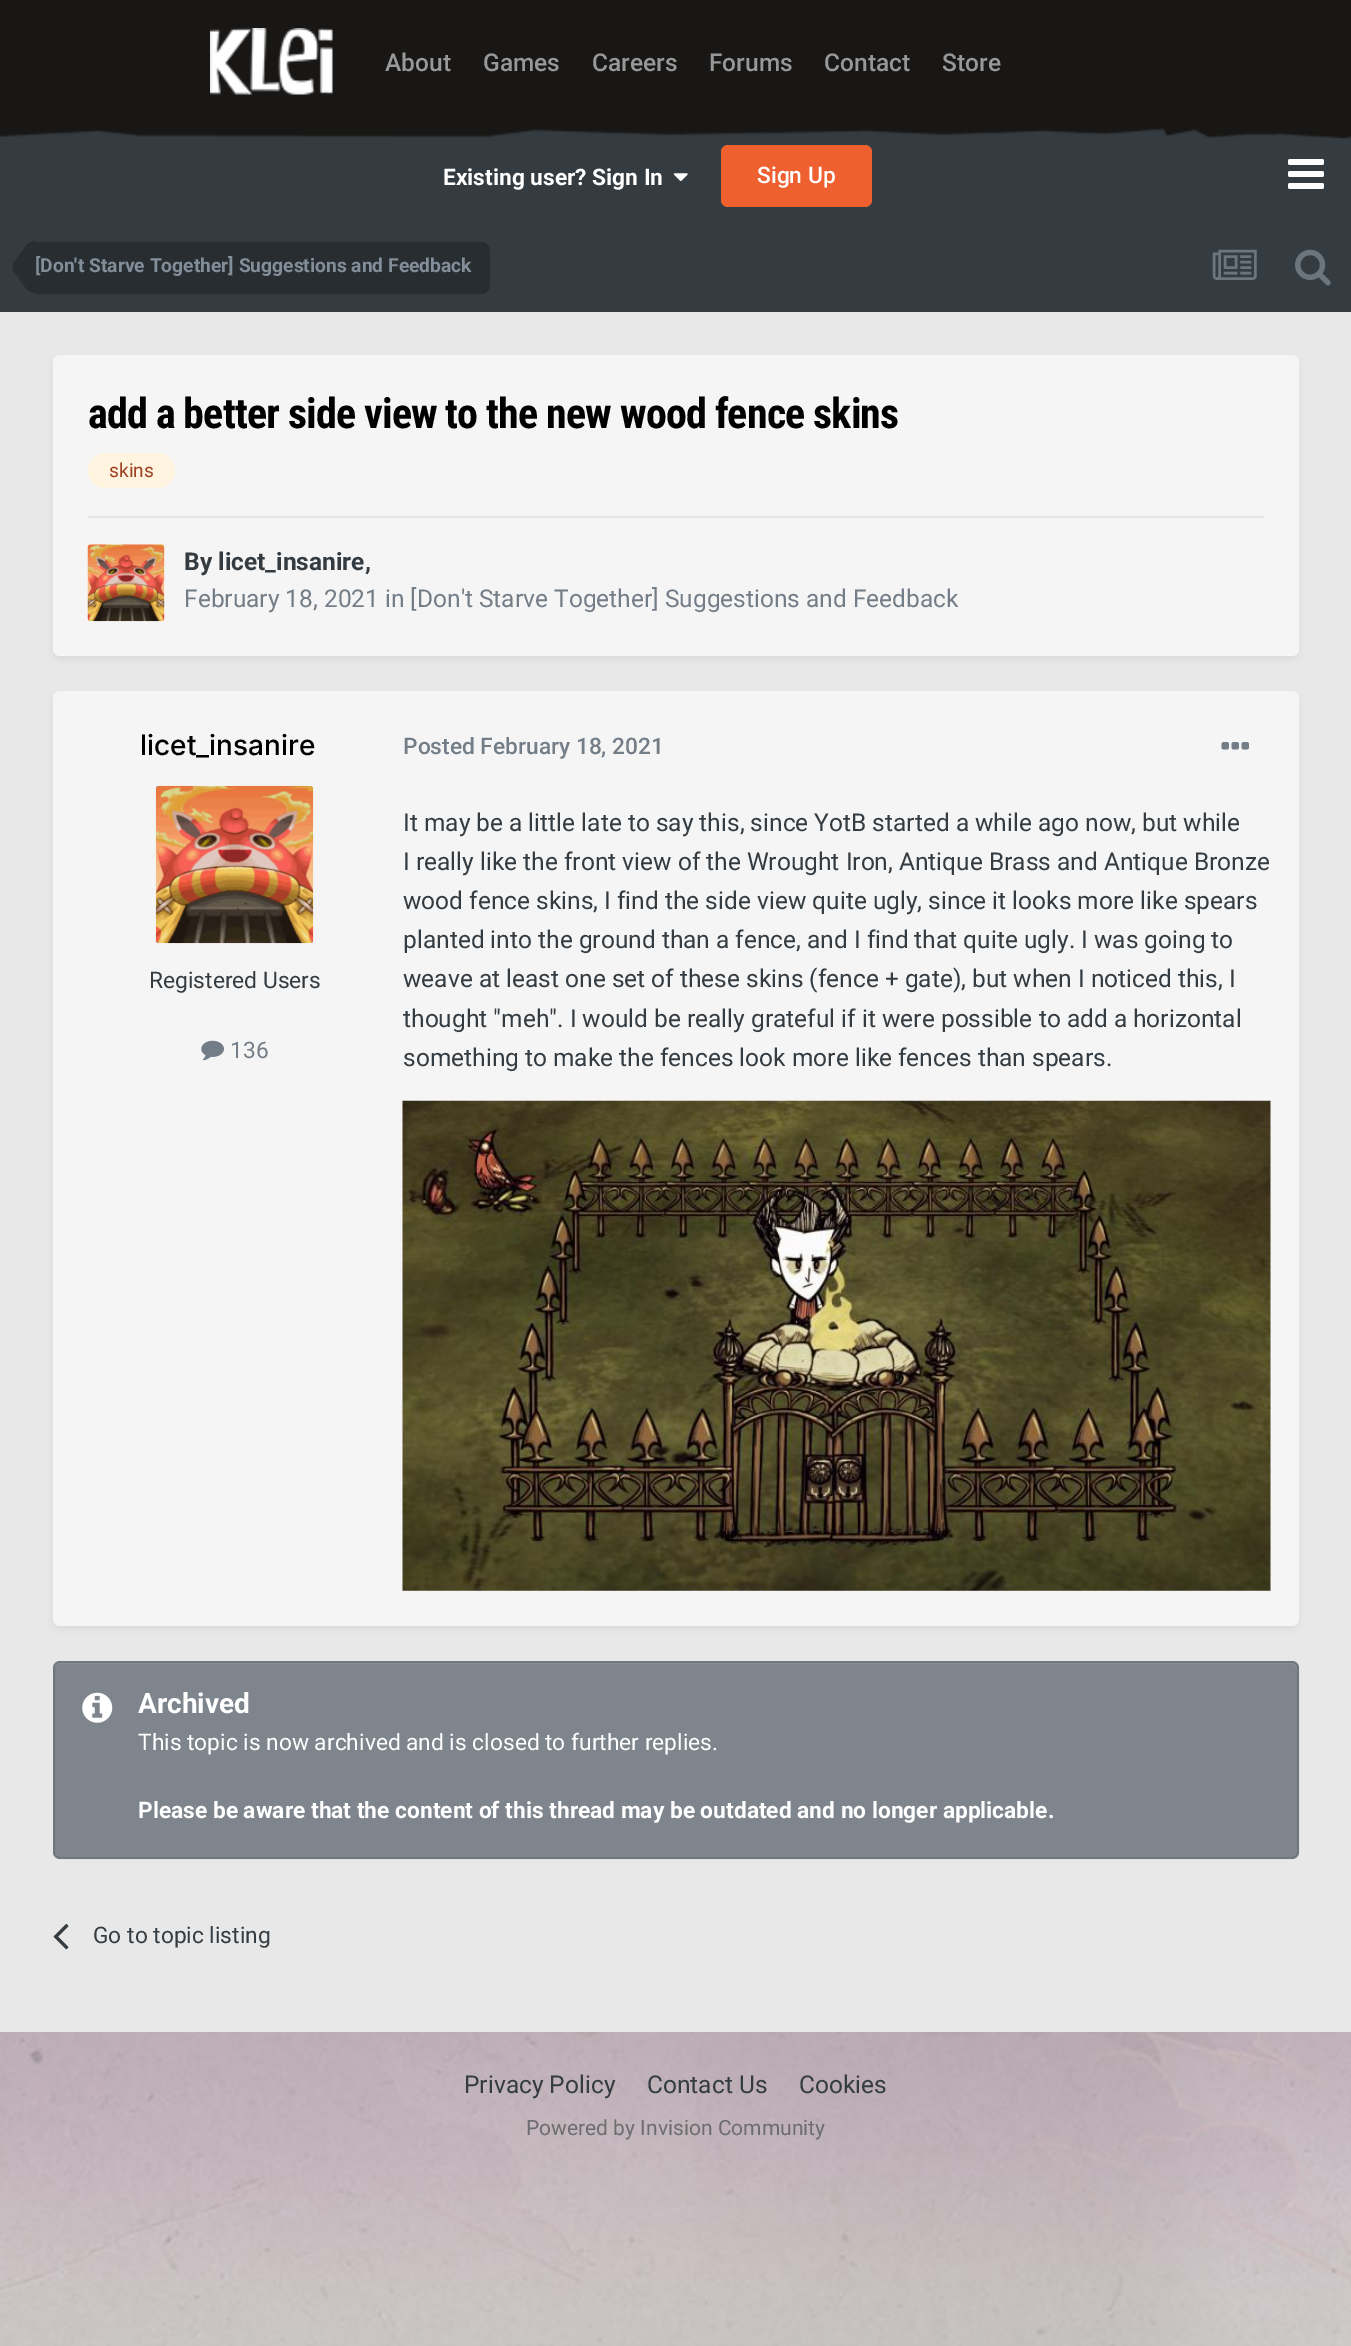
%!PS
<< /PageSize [1351 2346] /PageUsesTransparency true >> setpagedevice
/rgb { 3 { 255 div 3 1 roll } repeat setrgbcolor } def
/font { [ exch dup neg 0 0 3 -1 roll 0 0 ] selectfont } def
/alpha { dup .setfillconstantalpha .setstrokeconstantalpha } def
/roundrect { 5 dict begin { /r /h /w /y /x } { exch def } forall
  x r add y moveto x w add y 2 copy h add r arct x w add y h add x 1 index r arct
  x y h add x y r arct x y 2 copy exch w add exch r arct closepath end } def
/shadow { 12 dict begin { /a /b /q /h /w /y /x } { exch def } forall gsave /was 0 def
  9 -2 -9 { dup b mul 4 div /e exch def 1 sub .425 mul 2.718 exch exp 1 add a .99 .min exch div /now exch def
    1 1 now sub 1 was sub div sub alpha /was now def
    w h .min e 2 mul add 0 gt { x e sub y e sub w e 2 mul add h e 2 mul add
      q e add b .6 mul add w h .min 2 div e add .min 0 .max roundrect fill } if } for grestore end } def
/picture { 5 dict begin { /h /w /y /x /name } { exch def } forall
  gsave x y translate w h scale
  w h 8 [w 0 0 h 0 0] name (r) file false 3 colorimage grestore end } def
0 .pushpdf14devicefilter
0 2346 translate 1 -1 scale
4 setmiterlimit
255 255 255 rgb
0 0 1351 2346 rectfill
(img/1.rgb) 0 2032 1351 314 picture
24 23 22 rgb
0 0 1351 128 rectfill
(img/2.rgb) 210 28 123 67 picture
53 60 65 rgb
0 128 1351 184 rectfill
(img/3.rgb) 0 128 1351 11 picture
(img/4.rgb) 673 173 15 9 picture
239 96 48 rgb
721 145 151 62 7 roundrect fill
(img/5.rgb) 1288 159 36 30 picture
40 45 49 rgb
35 242 moveto 481 242 lineto 486 242 490 246 490 251 curveto 490 285 lineto 490 290 486 294 481 294 curveto 35 294 lineto closepath fill
12.5 269.5 moveto 12.5 267 lineto 35 267 lineto 35 293 lineto 31 293 27.5 291 25 287 curveto closepath 35 241 moveto 35 267 lineto 12.5 267 lineto 12.5 264.5 lineto 25 247 lineto 27.5 243 31 241 35 241 curveto closepath fill
(img/6.rgb) 1212 249 45 31 picture
(img/7.rgb) 1295 249 36 37 picture
232 232 232 rgb
0 312 1351 1720 rectfill
45 55 72 rgb
54 361 1243 297 5 3.5 0.1 shadow
245 245 245 rgb
53 355 1246 301 7 roundrect fill
255 244 223 rgb
88 453 87 35 17.5 roundrect fill
230 230 231 rgb
88 516 1176 2 rectfill
255 255 255 rgb
88 544 77 77 4 roundrect fill
(img/8.rgb) 87 544 78 78 picture
45 55 72 rgb
54 697 1243 931 5 3.5 0.1 shadow
245 245 245 rgb
53 691 1246 935 7 roundrect fill
(img/9.rgb) 155 785 159 159 picture
(img/10.rgb) 201 1040 23 21 picture
(img/11.rgb) 1221 742 28 8 picture
(img/12.rgb) 402 1100 869 491 picture
127 133 141 rgb
53 1661 1246 198 7 roundrect fill
140 145 152 rgb
60 1664 moveto 1292 1664 lineto 1294 1664 1297 1667 1297 1670 curveto 1297 1668 lineto 1297 1665 1295 1663 1292 1663 curveto 59 1663 lineto 56 1663 54 1665 54 1668 curveto 54 1670 lineto 54 1667 57 1664 60 1664 curveto closepath fill
0.1 alpha
0 0 0 rgb
2 setlinewidth
54 1662 1244 196 6 roundrect stroke
1 alpha
(img/13.rgb) 82 1692 31 31 picture
(img/14.rgb) 53 1924 16 26 picture
/Roboto-Medium 24.5 font
152 152 152 rgb
[
  [(About) 385 71]
  [(Games) 483 71]
  [(Careers) 592 71]
  [(Forums) 709 71]
  [(Contact) 824 71]
  [(Store) 942 71]
] { aload pop moveto show } forall
/Roboto-Bold 22.75 font
255 255 255 rgb
443 185 moveto (Existing user? Sign In) show
/Roboto-Medium 22.75 font
757 183 moveto (Sign Up) show
/Roboto-Bold 19.25 font
130 142 153 rgb
35 272 moveto ([Don't Starve Together] Suggestions and Feedback) show
/RobotoCondensed-Bold 42 font
0 0 0 rgb
88 428 moveto -0.85 0 (add a better side view to the new wood fence skins) ashow
/Roboto-Regular 19.25 font
156 66 33 rgb
109 477 moveto (skins) show
/Roboto-Bold 24.5 font
53 60 65 rgb
184 570 moveto (By licet_insanire,) show
/Roboto-Regular 24.5 font
115 125 135 rgb
184 607 moveto (February 18, 2021 in [Don't Starve Together] Suggestions and Feedback) show
/Inter-Medium 28 font
0 0 0 rgb
140 755 moveto (licet_insanire) show
/Roboto-Regular 22.75 font
53 60 65 rgb
149 988 moveto (Registered Users) show
115 125 135 rgb
230 1058 moveto (136) show
/Roboto-Medium 22.75 font
403 754 moveto (Posted February 18, 2021) show
/Roboto-Regular 24.5 font
53 60 65 rgb
[
  [(It may be a little late to say this, since YotB started a while ago now, but while) 403 831]
  [(I really like the front view of the Wrought Iron, Antique Brass and Antique Bronze) 403 870]
  [(wood fence skins, I find the side view quite ugly, since it looks more like spears) 403 909]
  [(planted into the ground than a fence, and I find that quite ugly. I was going to) 403 948]
  [(weave at least one set of these skins \(fence + gate\), but when I noticed this, I) 403 987]
  [(thought "meh". I would be really grateful if it were possible to add a horizontal) 403 1027]
  [(something to make the fences look more like fences than spears.) 403 1066]
] { aload pop moveto show } forall
/Roboto-Bold 28 font
255 255 255 rgb
138 1713 moveto (Archived) show
/Roboto-Regular 22.75 font
138 1750 moveto (This topic is now archived and is closed to further replies.) show
/Roboto-Bold 22.75 font
138 1818 moveto (Please be aware that the content of this thread may be outdated and no longer applicable.) show
/Roboto-Regular 22.75 font
53 60 65 rgb
93 1943 moveto (Go to topic listing) show
/Roboto-Regular 24.5 font
[
  [(Privacy Policy) 464 2093]
  [(Contact Us) 647 2093]
  [(Cookies) 799 2093]
] { aload pop moveto show } forall
/Roboto-Regular 21 font
109 108 113 rgb
526 2135 moveto (Powered by Invision Community) show
.poppdf14devicefilter showpage
